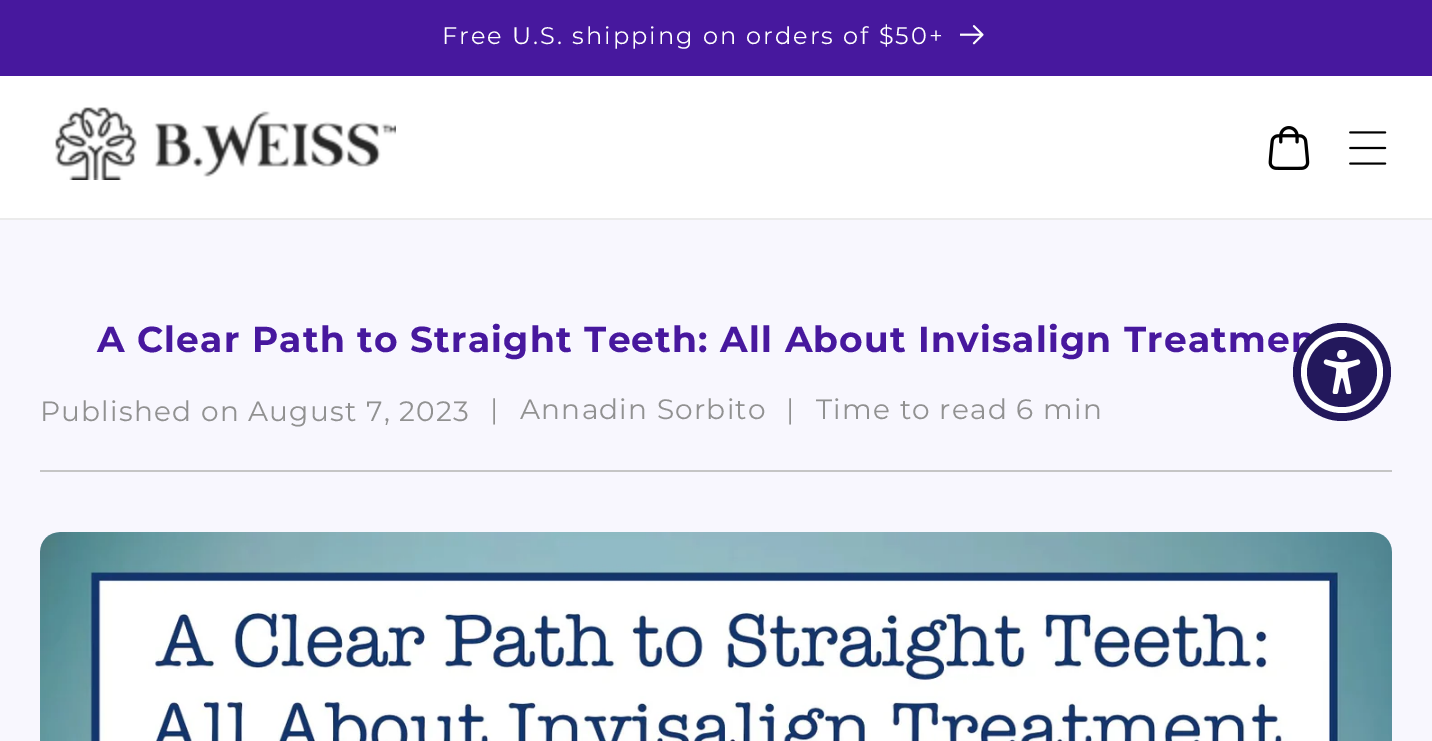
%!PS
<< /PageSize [1432 741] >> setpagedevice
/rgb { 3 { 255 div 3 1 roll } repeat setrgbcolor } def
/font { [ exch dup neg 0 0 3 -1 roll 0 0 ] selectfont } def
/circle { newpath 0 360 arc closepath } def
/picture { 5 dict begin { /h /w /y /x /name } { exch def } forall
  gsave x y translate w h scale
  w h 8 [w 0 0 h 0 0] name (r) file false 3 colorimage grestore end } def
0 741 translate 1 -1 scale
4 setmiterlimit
255 255 255 rgb
0 0 1432 741 rectfill
71 24 158 rgb
0 0 1432 76 rectfill
(img/1.rgb) 960 25 24 20 picture
235 235 235 rgb
0 218 1432 2 rectfill
(img/2.rgb) 55 107 341 73 picture
(img/3.rgb) 1268 126 42 44 picture
(img/4.rgb) 1349 131 38 34 picture
248 247 254 rgb
0 220 1432 521 rectfill
197 197 197 rgb
40 470 1352 2 rectfill
(img/5.rgb) 40 532 1352 209 picture
/Montserrat-Regular 24 font
255 255 255 rgb
442 44 moveto 2 0 (Free U.S. shipping on orders of $50+) ashow
/Montserrat-Bold 36 font
71 24 158 rgb
97 352 moveto 1.2 0 (A Clear Path to Straight Teeth: All About Invisalign Treatmen) ashow
/Montserrat-Regular 28 font
145 145 145 rgb
40 421 moveto 1.2 0 (Published on August 7, 2023) ashow
490 419 moveto 1.2 0 (|) ashow
520 419 moveto 1.2 0 (Annadin Sorbito) ashow
786 419 moveto 1.2 0 (|) ashow
816 419 moveto 1.2 0 (Time to read 6 min) ashow
35 24 92 rgb
1342 372 49 circle fill
255 255 255 rgb
1342 372 41 circle fill
35 24 92 rgb
1342 372 35 circle fill
(img/6.rgb) 1323 350 38 44 picture
showpage
